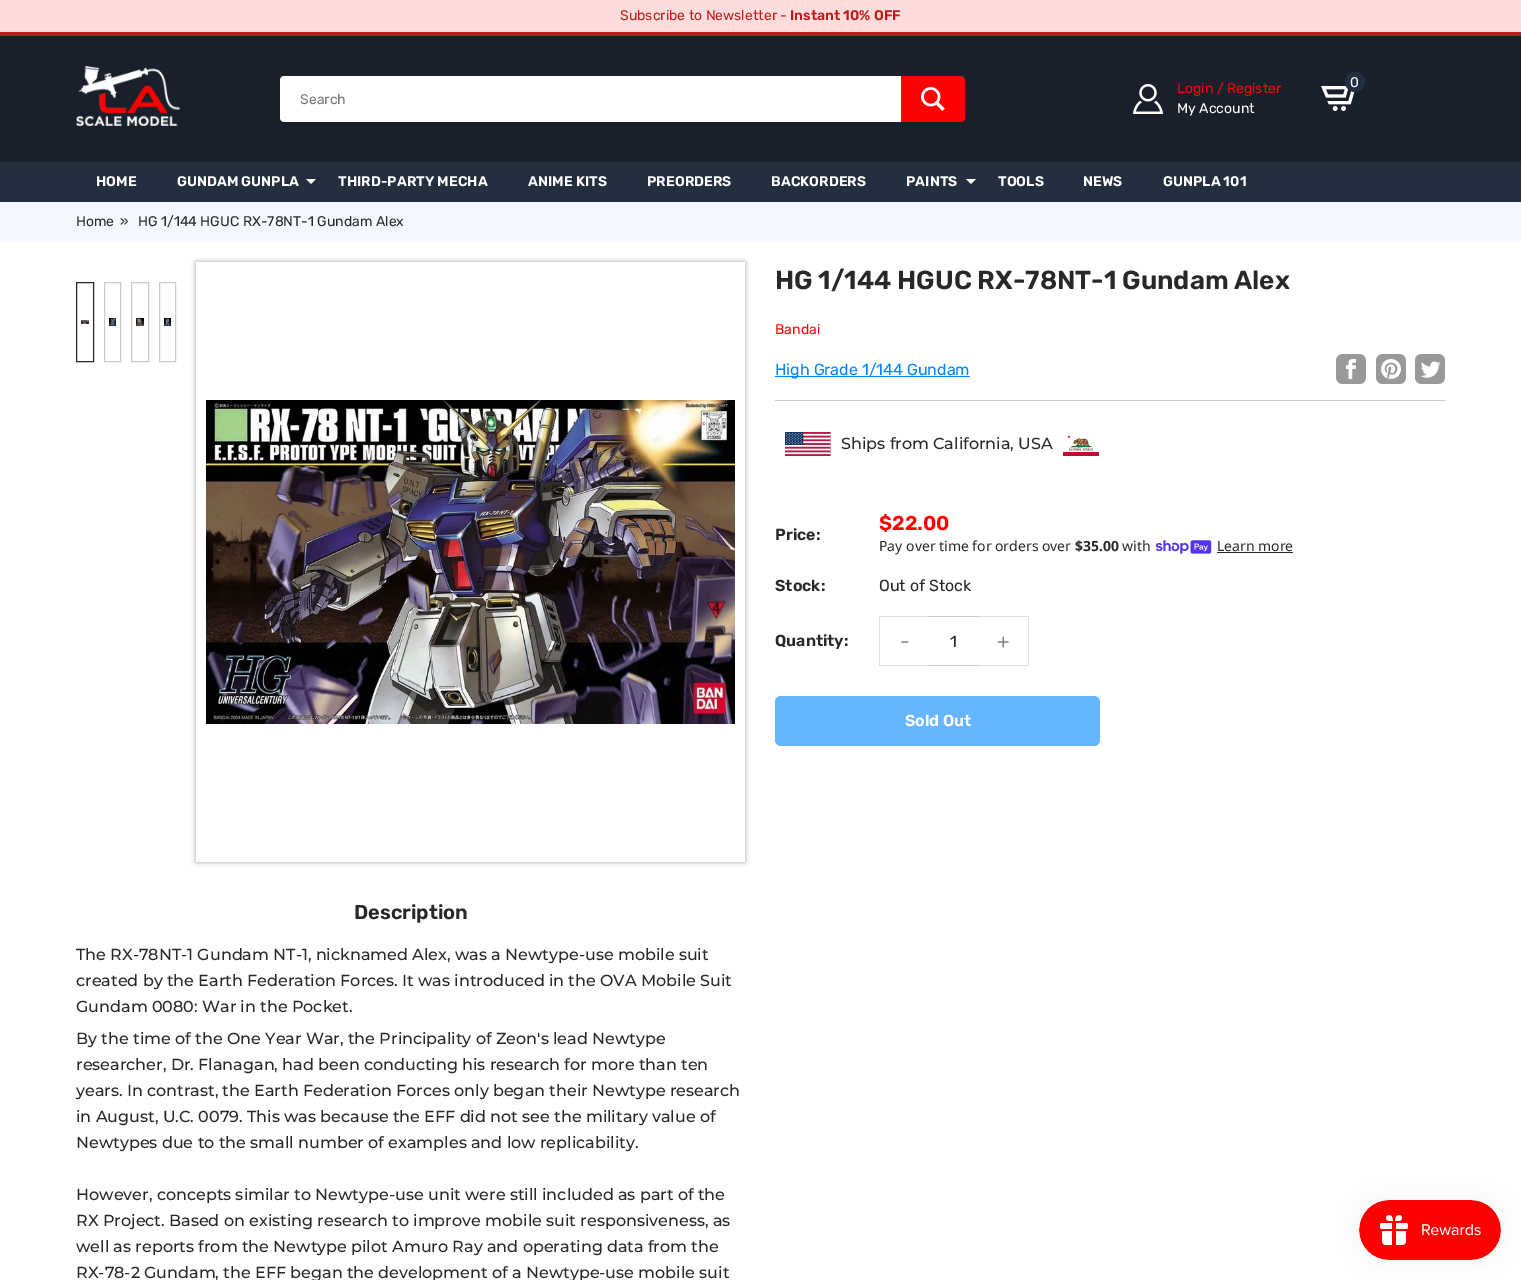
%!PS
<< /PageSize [1521 1280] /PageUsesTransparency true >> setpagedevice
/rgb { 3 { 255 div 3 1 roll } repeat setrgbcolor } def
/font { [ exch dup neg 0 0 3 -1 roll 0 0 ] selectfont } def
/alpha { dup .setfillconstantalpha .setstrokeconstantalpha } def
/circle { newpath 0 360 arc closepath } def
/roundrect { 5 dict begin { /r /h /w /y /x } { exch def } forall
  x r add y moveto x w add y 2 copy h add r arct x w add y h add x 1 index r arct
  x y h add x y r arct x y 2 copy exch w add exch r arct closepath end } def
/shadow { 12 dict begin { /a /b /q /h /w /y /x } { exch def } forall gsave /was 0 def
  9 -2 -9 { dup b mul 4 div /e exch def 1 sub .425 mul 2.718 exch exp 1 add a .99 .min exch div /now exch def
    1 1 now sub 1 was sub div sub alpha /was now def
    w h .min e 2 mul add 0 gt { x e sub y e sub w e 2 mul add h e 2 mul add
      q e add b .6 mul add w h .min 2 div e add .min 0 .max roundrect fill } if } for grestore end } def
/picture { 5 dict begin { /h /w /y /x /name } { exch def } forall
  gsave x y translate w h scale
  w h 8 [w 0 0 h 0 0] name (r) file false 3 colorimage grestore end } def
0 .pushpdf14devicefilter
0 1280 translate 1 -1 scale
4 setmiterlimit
255 255 255 rgb
0 0 1521 1280 rectfill
[
  [0 36 1521 126 25 32 43]
  [0 0 1521 32 255 220 220]
  [0 32 1521 4 189 28 26]
] { aload pop rgb rectfill } forall
(img/1.rgb) 76 66 104 60 picture
255 255 255 rgb
284 76 moveto 901 76 lineto 901 122 lineto 284 122 lineto 282 122 280 120 280 118 curveto 280 80 lineto 280 78 282 76 284 76 curveto closepath fill
253 2 0 rgb
901 76 moveto 961 76 lineto 963 76 965 78 965 80 curveto 965 118 lineto 965 120 963 122 961 122 curveto 901 122 lineto closepath fill
(img/2.rgb) 921 87 24 24 picture
(img/3.rgb) 1133 84 30 30 picture
(img/4.rgb) 1321 86 34 25 picture
35 47 62 rgb
1355 82 10 circle fill
0 162 1521 40 rectfill
255 255 255 rgb
306 179 moveto 316 179 lineto 311 184 lineto closepath fill
966 179 moveto 976 179 lineto 971 184 lineto closepath fill
[
  [0 202 1521 40 244 247 253]
  [775 400 670 1 204 204 204]
  [775 376 195 1 0 132 255]
] { aload pop rgb rectfill } forall
(img/5.rgb) 1336 354 30 30 picture
(img/6.rgb) 1376 354 30 30 picture
(img/7.rgb) 1415 354 30 30 picture
(img/8.rgb) 785 432 46 24 picture
(img/9.rgb) 1063 435 36 21 picture
(img/10.rgb) 1155 540 57 14 picture
[
  [1217 552 76 1 40 40 40]
  [879 616 50 1 224 224 224]
  [879 665 50 1 224 224 224]
  [879 616 1 50 224 224 224]
  [929 616 50 1 204 204 204]
  [929 665 50 1 204 204 204]
  [979 616 50 1 224 224 224]
  [1028 616 1 50 224 224 224]
  [979 665 50 1 224 224 224]
] { aload pop rgb rectfill } forall
102 181 255 rgb
775 696 325 50 6 roundrect fill
40 40 40 rgb
76.5 282.5 17 79 rectstroke
(img/11.rgb) 81 320 8 4 picture
204 204 204 rgb
104.5 282.5 16 79 rectstroke
(img/12.rgb) 109 318 7 8 picture
131.5 282.5 17 79 rectstroke
(img/13.rgb) 136 318 8 8 picture
159.5 282.5 16 79 rectstroke
(img/14.rgb) 164 318 7 8 picture
gsave
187 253 moveto 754 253 lineto 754 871 lineto 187 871 lineto closepath 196 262 moveto 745 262 lineto 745 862 lineto 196 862 lineto closepath eoclip newpath
0 0 0 rgb
196 262 549 600 0 2.5 0.35 shadow
grestore
(img/15.rgb) 206 400 529 324 picture
0 0 0 rgb
1359 1200 142 60 30 12.5 0.05 shadow
(img/16.rgb) 1359 1200 142 60 picture
/Rubik-Regular 14 font
189 28 26 rgb
620 20 moveto (Subscribe to Newsletter -) show
/Rubik-SemiBold 14 font
790 20 moveto (Instant 10% OFF) show
/Rubik-Regular 14 font
117 117 117 rgb
300 104 moveto (Search) show
253 2 0 rgb
1177 93 moveto (Login / Register) show
255 255 255 rgb
1177 113 moveto (My Account) show
1350 87 moveto (0) show
/Rubik-SemiBold 14 font
[
  [(HOME) 96 186]
  [(GUNDAM GUNPLA) 177 186]
  [(THIRD-PARTY MECHA) 338 186]
  [(ANIME KITS) 528 186]
  [(PREORDERS) 647 186]
  [(BACKORDERS) 771 186]
  [(PAINTS) 906 186]
  [(TOOLS) 998 186]
  [(NEWS) 1083 186]
  [(GUNPLA 101) 1163 186]
] { aload pop moveto show } forall
/Rubik-Regular 14 font
40 40 40 rgb
[
  [(Home) 76 226]
  [(») 120 226]
  [(HG 1/144 HGUC RX-78NT-1 Gundam Alex) 138 226]
] { aload pop moveto show } forall
/Rubik-SemiBold 26 font
775 289 moveto (HG 1/144 HGUC RX-78NT-1 Gundam Alex) show
/Rubik-Regular 14 font
253 2 0 rgb
775 334 moveto (Bandai) show
/Rubik-Regular 16 font
0 132 255 rgb
775 375 moveto (High Grade 1/144 Gundam) show
/Montserrat-Medium 16 font
40 40 40 rgb
841 449 moveto (Ships from California, USA) show
/Rubik-SemiBold 16 font
775 540 moveto (Price:) show
/Rubik-SemiBold 20 font
253 2 0 rgb
879 530 moveto ($22.00) show
/NotoSans-Regular 14 font
40 40 40 rgb
879 551 moveto (Pay over time for orders over) show
/NotoSans-Bold 14 font
1075 551 moveto ($35.00) show
/NotoSans-Regular 14 font
1122 551 moveto (with) show
1217 551 moveto (Learn more) show
/Rubik-SemiBold 16 font
775 591 moveto (Stock:) show
/Rubik-Regular 16 font
879 591 moveto (Out of Stock) show
/Rubik-SemiBold 16 font
775 646 moveto (Quantity:) show
/Rubik-Regular 20 font
126 126 126 rgb
900 648 moveto (-) show
/Rubik-Regular 16 font
40 40 40 rgb
950 647 moveto (1) show
/Rubik-Regular 20 font
126 126 126 rgb
997 648 moveto (+) show
/Rubik-SemiBold 16 font
255 255 255 rgb
905 726 moveto (Sold Out) show
/Rubik-SemiBold 20 font
40 40 40 rgb
354 919 moveto (Description) show
/Montserrat-Medium 16 font
[
  [(The RX-78NT-1 Gundam NT-1, nicknamed Alex, was a Newtype-use mobile suit) 76 960]
  [(created by the Earth Federation Forces. It was introduced in the OVA Mobile Suit) 76 986]
  [(Gundam 0080: War in the Pocket.) 76 1012]
  [(By the time of the One Year War, the Principality of Zeon's lead Newtype) 76 1044]
  [(researcher, Dr. Flanagan, had been conducting his research for more than ten) 76 1070]
  [(years. In contrast, the Earth Federation Forces only began their Newtype research) 76 1096]
  [(in August, U.C. 0079. This was because the EFF did not see the military value of) 76 1122]
  [(Newtypes due to the small number of examples and low replicability.) 76 1148]
  [(However, concepts similar to Newtype-use unit were still included as part of the) 76 1200]
  [(RX Project. Based on existing research to improve mobile suit responsiveness, as) 76 1226]
  [(well as reports from the Newtype pilot Amuro Ray and operating data from the) 76 1252]
  [(RX-78-2 Gundam, the EFF began the development of a Newtype-use mobile suit) 76 1278]
] { aload pop moveto show } forall
.poppdf14devicefilter showpage
